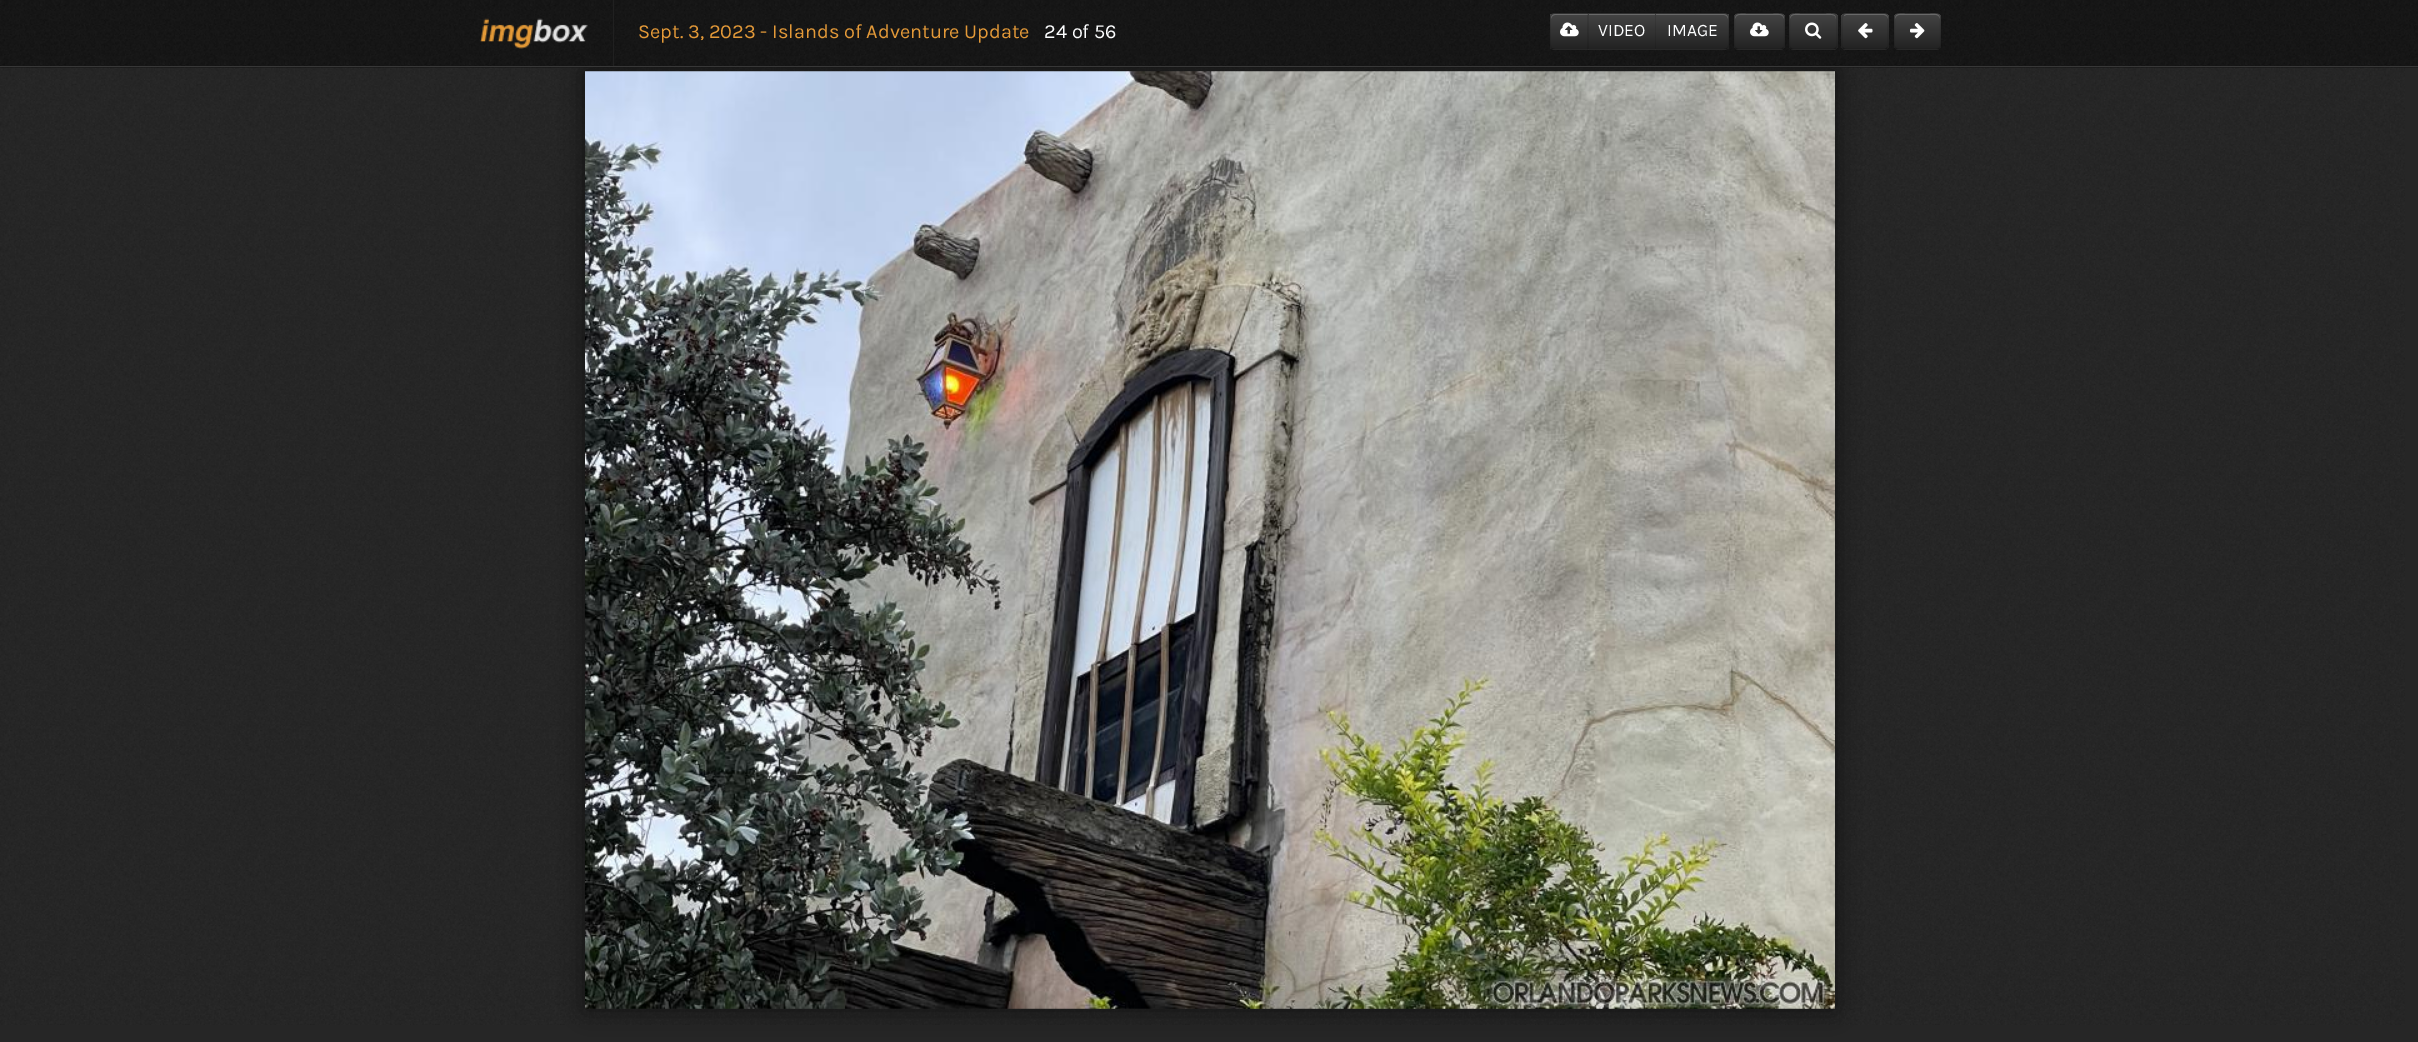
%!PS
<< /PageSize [2418 1042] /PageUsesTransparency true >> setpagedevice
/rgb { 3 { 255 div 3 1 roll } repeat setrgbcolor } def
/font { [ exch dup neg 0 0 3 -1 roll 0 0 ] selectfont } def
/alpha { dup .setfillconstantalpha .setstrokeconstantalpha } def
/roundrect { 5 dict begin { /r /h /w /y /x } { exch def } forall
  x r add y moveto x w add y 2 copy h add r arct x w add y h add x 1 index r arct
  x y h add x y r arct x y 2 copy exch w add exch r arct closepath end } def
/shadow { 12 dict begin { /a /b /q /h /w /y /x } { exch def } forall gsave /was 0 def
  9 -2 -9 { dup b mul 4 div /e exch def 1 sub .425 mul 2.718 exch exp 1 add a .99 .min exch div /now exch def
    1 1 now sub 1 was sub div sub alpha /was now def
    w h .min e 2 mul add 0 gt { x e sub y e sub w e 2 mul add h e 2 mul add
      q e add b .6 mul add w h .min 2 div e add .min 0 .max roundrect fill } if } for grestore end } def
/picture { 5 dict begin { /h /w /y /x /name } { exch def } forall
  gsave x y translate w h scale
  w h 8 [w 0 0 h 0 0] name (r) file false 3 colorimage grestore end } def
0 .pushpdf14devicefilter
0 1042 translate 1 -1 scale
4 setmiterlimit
38 38 38 rgb
0 0 2418 1042 rectfill
(img/1.rgb) 0 67 2405 958 picture
17 17 17 rgb
585 71 1250 938 0 12.5 1 shadow
(img/2.rgb) 0 0 2418 68 picture
55 55 55 rgb
0 66 2418 1 rectfill
(img/3.rgb) 480 18 108 31 picture
32 32 32 rgb
613 0 1 66 rectfill
54 54 54 rgb
1555 13 moveto 1589 13 lineto 1589 50 lineto 1555 50 lineto 1552 50 1550 48 1550 45 curveto 1550 18 lineto 1550 15 1552 13 1555 13 curveto closepath fill
gsave
1555 13 moveto 1589 13 lineto 1589 50 lineto 1555 50 lineto 1552 50 1550 48 1550 45 curveto 1550 18 lineto 1550 15 1552 13 1555 13 curveto closepath clip newpath
gsave 1550 14 moveto 1588 14 lineto 1588 49 lineto 1550 49 lineto closepath clip newpath
<< /ShadingType 2 /ColorSpace /DeviceRGB /Coords [1569 14 1569 49] /Extend [true true] /Function << /FunctionType 2 /Domain [0 1] /C0 [0.267 0.267 0.267] /C1 [0.133 0.133 0.133] /N 1 >> >> shfill grestore
grestore
105 105 105 rgb
1555 15 moveto 1588 15 lineto 1588 14 lineto 1555 14 lineto 1553 14 1551 16 1551 18 curveto 1551 19 lineto 1551 17 1553 15 1555 15 curveto closepath fill
0.1 alpha
0 0 0 rgb
1555 12.5 moveto 1553.5 12.5 1552 13 1551.5 14 curveto 1552.5 15 lineto 1553 14.5 1554 14 1555 14 curveto 1587 14 lineto 1589 12.5 lineto closepath fill
1589 12.5 moveto 1589 50 lineto 1587.5 49 lineto 1587.5 14 lineto 1587 14 lineto closepath fill
0.25 alpha
1589 50 moveto 1587.5 49 lineto 1555 49 lineto 1554 49 1553 48.5 1552 48 curveto 1551.5 48.5 lineto 1552 49.5 1553.5 50 1555 50 curveto closepath fill
0.1 alpha
1550 17.5 moveto 1550 45 lineto 1550 46.5 1550.5 48 1551.5 48.5 curveto 1552 48 lineto 1551.5 47 1551 46 1551 45 curveto 1551 17.5 lineto 1551 16.5 1551.5 15.5 1552.5 15 curveto 1551.5 14 lineto 1550.5 15 1550 16 1550 17.5 curveto closepath fill
1 alpha
(img/4.rgb) 1560 22 19 15 picture
54 54 54 rgb
1588 13 67 37 rectfill
gsave 1588 14 moveto 1655 14 lineto 1655 49 lineto 1588 49 lineto closepath clip newpath
<< /ShadingType 2 /ColorSpace /DeviceRGB /Coords [1622 14 1622 49] /Extend [true true] /Function << /FunctionType 2 /Domain [0 1] /C0 [0.267 0.267 0.267] /C1 [0.133 0.133 0.133] /N 1 >> >> shfill grestore
105 105 105 rgb
1589 14 66 1 rectfill
0.1 alpha
0 0 0 rgb
1588 12 moveto 1656 12 lineto 1655 14 lineto 1589 14 lineto closepath fill
0.25 alpha
1656 50 moveto 1588 50 lineto 1589 49 lineto 1655 49 lineto closepath fill
0.1 alpha
1587.5 50 moveto 1587.5 12.5 lineto 1589 14 lineto 1589 49 lineto closepath fill
1 alpha
54 54 54 rgb
1655 13 moveto 1724 13 lineto 1727 13 1729 15 1729 18 curveto 1729 45 lineto 1729 48 1727 50 1724 50 curveto 1655 50 lineto closepath fill
gsave
1655 13 moveto 1724 13 lineto 1727 13 1729 15 1729 18 curveto 1729 45 lineto 1729 48 1727 50 1724 50 curveto 1655 50 lineto closepath clip newpath
gsave 1655 14 moveto 1729 14 lineto 1729 49 lineto 1655 49 lineto closepath clip newpath
<< /ShadingType 2 /ColorSpace /DeviceRGB /Coords [1692 14 1692 49] /Extend [true true] /Function << /FunctionType 2 /Domain [0 1] /C0 [0.267 0.267 0.267] /C1 [0.133 0.133 0.133] /N 1 >> >> shfill grestore
grestore
105 105 105 rgb
1656 15 moveto 1724 15 lineto 1726 15 1728 17 1728 19 curveto 1728 18 lineto 1728 16 1726 14 1724 14 curveto 1656 14 lineto closepath fill
0.1 alpha
0 0 0 rgb
1655 12 moveto 1726 12 lineto 1728 14 lineto 1727 15 lineto 1724 14 lineto 1656 14 lineto closepath fill
1729 46.5 moveto 1727.5 48.5 lineto 1726.5 48 lineto 1727.5 47 1728 46 1728 45 curveto 1728 18 lineto 1728 16.5 1727.5 15.5 1726.5 14.5 curveto 1727.5 13.5 lineto 1729 16 lineto closepath fill
0.25 alpha
1724 50 moveto 1725 50 1727 50 1727 49 curveto 1727 48 lineto 1724 49 lineto 1656 49 lineto 1655 50 lineto closepath fill
0.1 alpha
1656 14 moveto 1656.5 14 lineto 1655 12.5 lineto 1655 50 lineto 1656 49 lineto closepath fill
1 alpha
54 54 54 rgb
1734 13 51 37 5 roundrect fill
gsave
1734 13 51 37 5 roundrect clip newpath
gsave 1734 14 moveto 1785 14 lineto 1785 49 lineto 1734 49 lineto closepath clip newpath
<< /ShadingType 2 /ColorSpace /DeviceRGB /Coords [1759 14 1759 49] /Extend [true true] /Function << /FunctionType 2 /Domain [0 1] /C0 [0.267 0.267 0.267] /C1 [0.133 0.133 0.133] /N 1 >> >> shfill grestore
grestore
105 105 105 rgb
1739 15 moveto 1780 15 lineto 1782 15 1784 17 1784 19 curveto 1784 13 1778 14 1773 14 curveto 1746 14 lineto 1741 14 1735 13 1735 19 curveto 1735 17 1737 15 1739 15 curveto closepath fill
0.25 alpha
0 0 0 rgb
1.2 setlinewidth
1783 48 moveto 1782.5 49 1781 49.5 1780 49.5 curveto 1739 49.5 lineto 1737.5 49.5 1736.5 49 1735.5 48 curveto stroke
0.1 alpha
1735.5 48 moveto 1735 47.5 1734.5 46 1734.5 45 curveto 1734.5 17.5 lineto 1734.5 16.5 1735 15 1735.5 14.5 curveto 1736.5 13.5 1737.5 13 1739 13 curveto 1780 13 lineto 1781 13 1782.5 13.5 1783 14.5 curveto 1784 15 1784.5 16.5 1784.5 17.5 curveto 1784.5 45 lineto 1784.5 46 1784 47.5 1783 48 curveto stroke
1 alpha
(img/5.rgb) 1750 22 19 15 picture
54 54 54 rgb
1789 13 49 37 5 roundrect fill
gsave
1789 13 49 37 5 roundrect clip newpath
gsave 1789 14 moveto 1838 14 lineto 1838 49 lineto 1789 49 lineto closepath clip newpath
<< /ShadingType 2 /ColorSpace /DeviceRGB /Coords [1813 14 1813 49] /Extend [true true] /Function << /FunctionType 2 /Domain [0 1] /C0 [0.267 0.267 0.267] /C1 [0.133 0.133 0.133] /N 1 >> >> shfill grestore
grestore
105 105 105 rgb
1794 15 moveto 1832 15 lineto 1835 15 1836 17 1836 19 curveto 1836 13 1830 14 1826 14 curveto 1800 14 lineto 1796 14 1790 13 1790 19 curveto 1790 17 1792 15 1794 15 curveto closepath fill
0.25 alpha
0 0 0 rgb
1835.5 48 moveto 1835 49 1833.5 49.5 1832.5 49.5 curveto 1794 49.5 lineto 1792.5 49.5 1791.5 49 1790.5 48 curveto stroke
0.1 alpha
1790.5 48 moveto 1790 47.5 1789.5 46 1789.5 45 curveto 1789.5 17.5 lineto 1789.5 16.5 1790 15 1790.5 14.5 curveto 1791.5 13.5 1792.5 13 1794 13 curveto 1832.5 13 lineto 1833.5 13 1835 13.5 1835.5 14.5 curveto 1836.5 15 1837 16.5 1837 17.5 curveto 1837 45 lineto 1837 46 1836.5 47.5 1835.5 48 curveto stroke
1 alpha
(img/6.rgb) 1805 22 17 17 picture
54 54 54 rgb
1841 13 48 37 5 roundrect fill
gsave
1841 13 48 37 5 roundrect clip newpath
gsave 1841 14 moveto 1889 14 lineto 1889 49 lineto 1841 49 lineto closepath clip newpath
<< /ShadingType 2 /ColorSpace /DeviceRGB /Coords [1865 14 1865 49] /Extend [true true] /Function << /FunctionType 2 /Domain [0 1] /C0 [0.267 0.267 0.267] /C1 [0.133 0.133 0.133] /N 1 >> >> shfill grestore
grestore
105 105 105 rgb
1846 15 moveto 1884 15 lineto 1886 15 1888 17 1888 19 curveto 1888 18 lineto 1888 16 1886 14 1884 14 curveto 1847 14 lineto 1846 14 1844 15 1844 16 curveto closepath fill
0.25 alpha
0 0 0 rgb
1887 48 moveto 1886 49 1885 49.5 1884 49.5 curveto 1846 49.5 lineto 1845 49.5 1844 49 1843 48 curveto stroke
0.1 alpha
1843 48 moveto 1841 46 1842 43 1842 40.5 curveto 1842 31 lineto 1842 8.5 1840 13 1865 13 curveto 1890 13 1888 8.5 1888 31 curveto 1888 40.5 lineto 1888 43 1889 46 1887 48 curveto stroke
1 alpha
(img/7.rgb) 1858 23 15 16 picture
54 54 54 rgb
1894 13 47 37 5 roundrect fill
gsave
1894 13 47 37 5 roundrect clip newpath
gsave 1894 14 moveto 1941 14 lineto 1941 49 lineto 1894 49 lineto closepath clip newpath
<< /ShadingType 2 /ColorSpace /DeviceRGB /Coords [1918 14 1918 49] /Extend [true true] /Function << /FunctionType 2 /Domain [0 1] /C0 [0.267 0.267 0.267] /C1 [0.133 0.133 0.133] /N 1 >> >> shfill grestore
grestore
105 105 105 rgb
1899 15 moveto 1936 15 lineto 1938 15 1940 17 1940 19 curveto 1940 13 1935 14 1930 14 curveto 1905 14 lineto 1900 14 1895 13 1895 19 curveto 1895 17 1897 15 1899 15 curveto closepath fill
0.25 alpha
0 0 0 rgb
1939.5 48 moveto 1938.5 49 1937.5 49.5 1936 49.5 curveto 1899 49.5 lineto 1897.5 49.5 1896.5 49 1895.5 48 curveto stroke
0.1 alpha
1895.5 48 moveto 1893.5 46 1894.5 43 1894.5 40.5 curveto 1894.5 31 lineto 1894.5 8.5 1892.5 13 1917.5 13 curveto 1942.5 13 1940.5 8.5 1940.5 31 curveto 1940.5 40.5 lineto 1940.5 43 1941.5 46 1939.5 48 curveto stroke
1 alpha
(img/8.rgb) 1910 23 15 16 picture
(img/9.rgb) 585 71 1250 938 picture
/Karla-Regular 20 font
227 153 56 rgb
638 38 moveto (Sept. 3, 2023 - Islands of Adventure Update) show
253 254 255 rgb
1044 38 moveto (24 of 56) show
/Karla-Regular 17.5 font
1598 36 moveto (VIDEO) show
1667 36 moveto (IMAGE) show
.poppdf14devicefilter showpage
